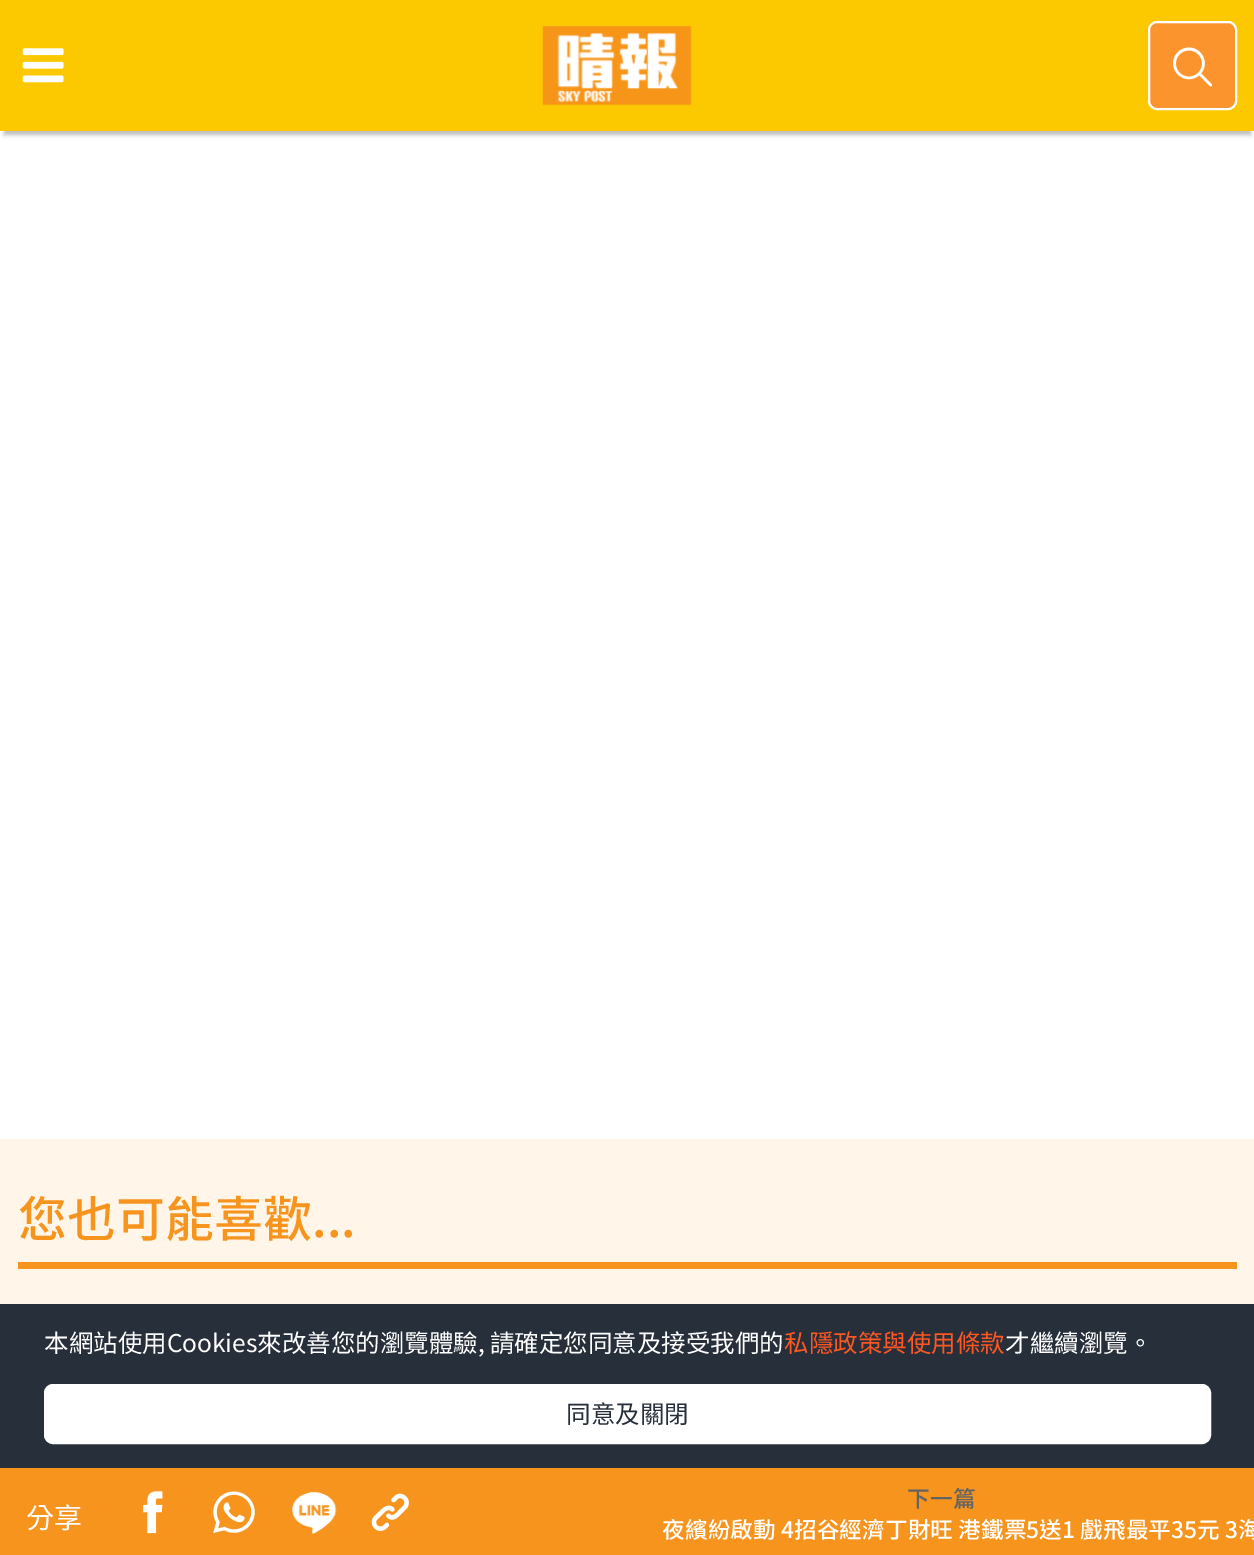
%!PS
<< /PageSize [1254 1555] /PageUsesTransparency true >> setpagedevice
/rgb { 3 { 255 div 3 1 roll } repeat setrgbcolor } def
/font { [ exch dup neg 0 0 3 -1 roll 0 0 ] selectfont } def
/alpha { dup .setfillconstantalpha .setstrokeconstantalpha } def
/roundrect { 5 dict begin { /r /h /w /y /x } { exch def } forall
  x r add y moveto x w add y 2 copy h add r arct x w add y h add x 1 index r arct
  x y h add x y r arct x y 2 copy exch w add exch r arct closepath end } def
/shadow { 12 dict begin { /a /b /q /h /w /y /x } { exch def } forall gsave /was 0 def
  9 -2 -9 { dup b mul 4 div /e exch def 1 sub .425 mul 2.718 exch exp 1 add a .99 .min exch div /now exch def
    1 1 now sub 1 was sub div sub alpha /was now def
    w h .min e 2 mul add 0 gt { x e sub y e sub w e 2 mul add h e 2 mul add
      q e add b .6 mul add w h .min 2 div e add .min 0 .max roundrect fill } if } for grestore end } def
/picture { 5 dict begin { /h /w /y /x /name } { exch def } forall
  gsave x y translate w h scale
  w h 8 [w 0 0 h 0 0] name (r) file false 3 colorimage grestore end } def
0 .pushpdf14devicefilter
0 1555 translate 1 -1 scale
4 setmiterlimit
255 255 255 rgb
0 0 1254 1555 rectfill
0 0 0 rgb
4 11 1247 124 0 2 0.25 shadow
252 200 0 rgb
0 0 1254 131 rectfill
(img/1.rgb) 22 48 42 35 picture
(img/2.rgb) 542 26 150 80 picture
252 148 46 rgb
1149 22 87 87 8 roundrect gsave fill grestore
255 255 255 rgb
2 setlinewidth
stroke
(img/3.rgb) 1173 47 39 40 picture
[
  [0 1139 1254 165 255 245 233]
  [18 1262 1219 7 247 148 30]
  [0 1468 1254 87 247 148 30]
] { aload pop rgb rectfill } forall
(img/4.rgb) 143 1491 20 43 picture
(img/5.rgb) 213 1491 42 43 picture
(img/6.rgb) 292 1492 45 42 picture
(img/7.rgb) 371 1493 38 38 picture
38 47 58 rgb
0 1304 1254 164 rectfill
255 255 255 rgb
45 1385 1165 58 8 roundrect gsave fill grestore
stroke
/NotoSansTC-Medium 49 font
247 148 30 rgb
18 1237 moveto (您也可能喜歡...) show
/NotoSansTC-Thin 28 font
255 255 255 rgb
26 1528 moveto (分享) show
/NotoSansTC-Medium 22.75 font
99 99 99 rgb
907 1507 moveto (下一篇) show
255 255 255 rgb
662 1538 moveto (夜繽紛啟動 4招谷經濟丁財旺 港鐵票5送1 戲飛最平35元 3海) show
/NotoSansTC-Thin 24.5 font
44 1352 moveto (本網站使用Cookies來改善您的瀏覽體驗, 請確定您同意及接受我們的) show
255 87 34 rgb
784 1352 moveto (私隱政策與使用條款) show
255 255 255 rgb
1005 1352 moveto (才繼續瀏覽。) show
38 47 58 rgb
566 1423 moveto (同意及關閉) show
.poppdf14devicefilter showpage
